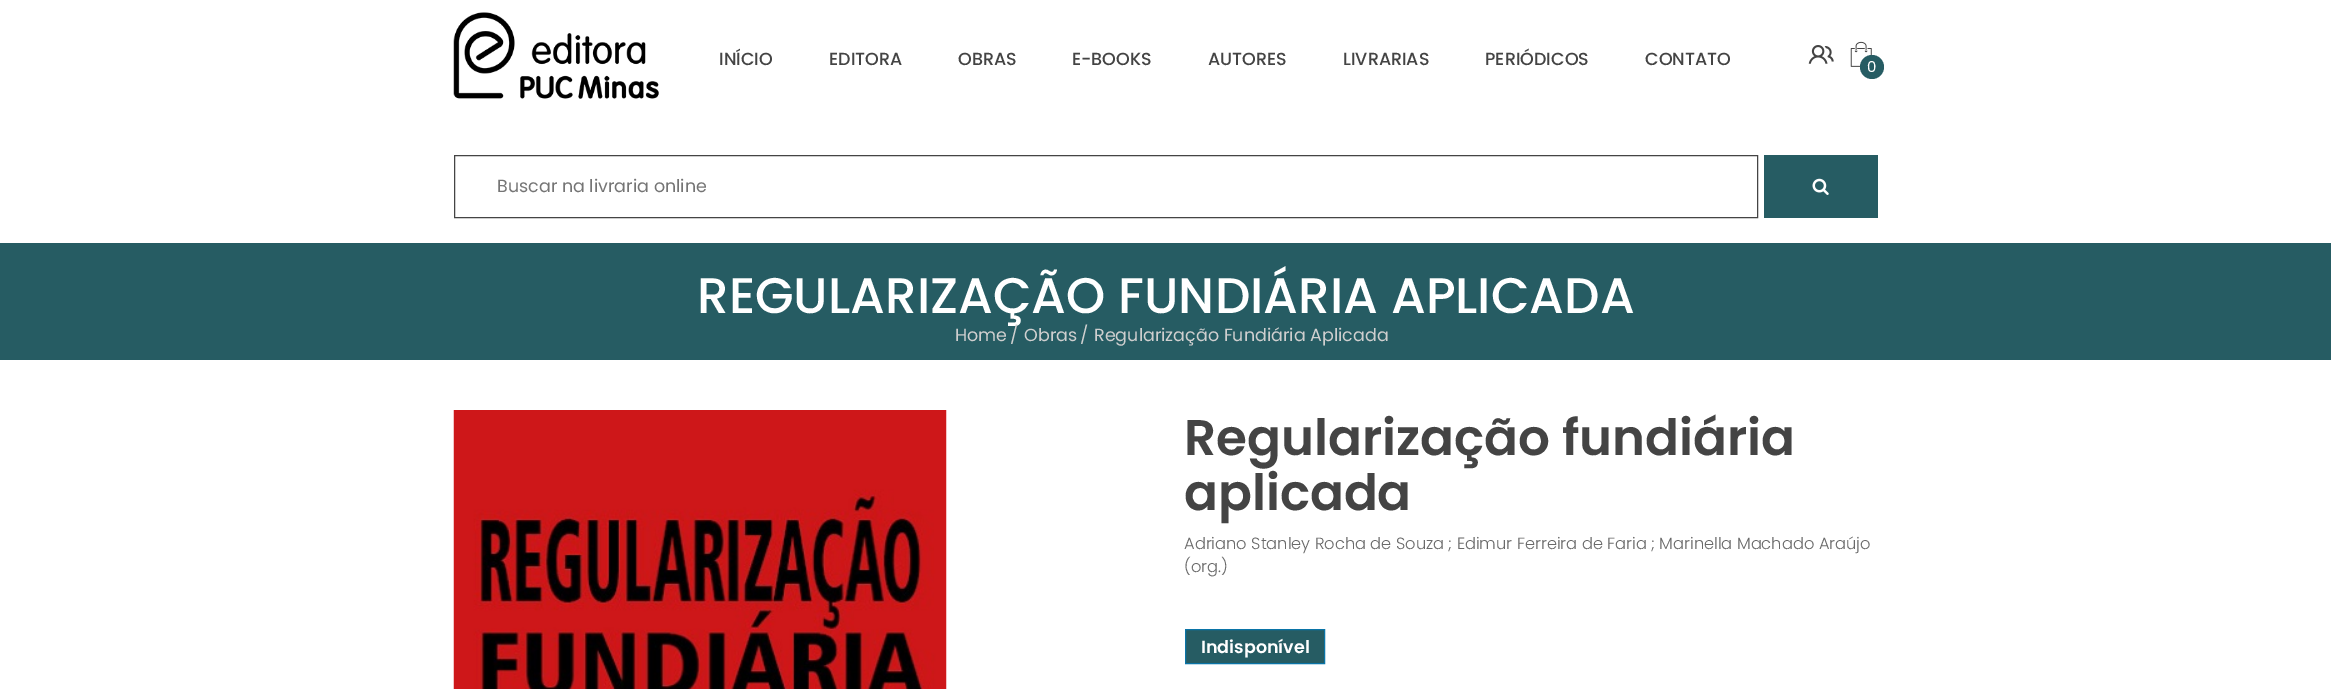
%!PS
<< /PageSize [2331 689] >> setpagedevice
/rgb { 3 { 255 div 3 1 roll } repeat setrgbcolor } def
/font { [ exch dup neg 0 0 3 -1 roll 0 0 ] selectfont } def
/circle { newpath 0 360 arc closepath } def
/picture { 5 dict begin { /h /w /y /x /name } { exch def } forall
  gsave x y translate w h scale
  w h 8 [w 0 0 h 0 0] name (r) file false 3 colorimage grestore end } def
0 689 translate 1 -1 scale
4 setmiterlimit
255 255 255 rgb
0 0 2331 689 rectfill
(img/1.rgb) 453 12 206 87 picture
(img/2.rgb) 1808 45 26 19 picture
(img/3.rgb) 1850 41 22 26 picture
38 92 99 rgb
1872 67 12 circle fill
68 68 68 rgb
454.5 155.5 1303 62 rectstroke
38 92 99 rgb
1764 155 114 63 rectfill
(img/4.rgb) 1812 178 17 17 picture
0 243 2331 117 rectfill
(img/5.rgb) 453 410 494 279 picture
1185.5 629.5 moveto 1324.5 629.5 lineto 1324.5 663.5 lineto 1185.5 663.5 lineto closepath gsave fill grestore
10 116 167 rgb
stroke
/Poppins-Medium 17.5 font
68 68 68 rgb
[
  [(INÍCIO) 719 65]
  [(EDITORA) 829 65]
  [(OBRAS) 958 65]
  [(E-BOOKS) 1072 65]
  [(AUTORES) 1208 65]
  [(LIVRARIAS) 1343 65]
  [(PERIÓDICOS) 1485 65]
  [(CONTATO) 1645 65]
] { aload pop moveto show } forall
/Poppins-Regular 15 font
255 255 255 rgb
1867 72 moveto (0) show
/Poppins-Regular 17.5 font
117 117 117 rgb
497 192 moveto (Buscar na livraria online) show
/Poppins-Medium 50 font
255 255 255 rgb
697 313 moveto (REGULARIZAÇÃO FUNDIÁRIA APLICADA) show
/Poppins-Regular 17.5 font
207 207 207 rgb
[
  [(Home) 955 341]
  [(/) 1010 341]
  [(Obras) 1024 341]
  [(/) 1080 341]
  [(Regularização Fundiária Aplicada) 1094 341]
] { aload pop moveto show } forall
/Poppins-SemiBold 50 font
68 68 68 rgb
1184 455 moveto (Regularização fundiária) show
1184 510 moveto (aplicada) show
/Poppins-Light 16.25 font
106 106 106 rgb
1184 549 moveto (Adriano Stanley Rocha de Souza ; Edimur Ferreira de Faria ; Marinella Machado Araújo) show
1184 572 moveto (\(org.\)) show
/Poppins-SemiBold 17.5 font
255 255 255 rgb
1201 653 moveto (Indisponível) show
showpage
